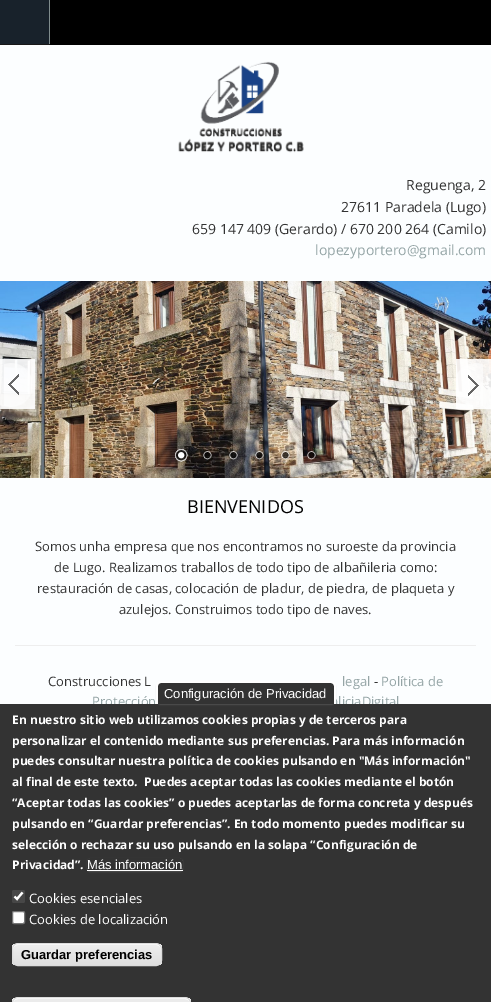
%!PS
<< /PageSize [491 1002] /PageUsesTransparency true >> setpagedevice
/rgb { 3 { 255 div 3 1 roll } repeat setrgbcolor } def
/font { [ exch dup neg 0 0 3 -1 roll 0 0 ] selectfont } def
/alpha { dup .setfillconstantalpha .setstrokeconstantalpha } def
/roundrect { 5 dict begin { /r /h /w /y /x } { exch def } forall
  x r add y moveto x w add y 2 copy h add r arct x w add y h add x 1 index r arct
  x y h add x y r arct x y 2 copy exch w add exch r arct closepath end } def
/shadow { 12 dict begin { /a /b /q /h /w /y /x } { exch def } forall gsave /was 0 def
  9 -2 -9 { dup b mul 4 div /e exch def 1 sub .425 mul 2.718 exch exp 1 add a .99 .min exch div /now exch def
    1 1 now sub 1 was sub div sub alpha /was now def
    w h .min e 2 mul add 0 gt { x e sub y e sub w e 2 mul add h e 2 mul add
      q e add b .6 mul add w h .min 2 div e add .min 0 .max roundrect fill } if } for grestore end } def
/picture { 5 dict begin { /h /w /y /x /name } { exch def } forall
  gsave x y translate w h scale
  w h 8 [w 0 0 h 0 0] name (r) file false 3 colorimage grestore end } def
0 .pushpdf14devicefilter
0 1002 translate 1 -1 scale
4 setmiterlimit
252 254 255 rgb
0 0 491 1002 rectfill
[
  [50 0 441 45 0 0 0]
  [0 0 49 44 24 34 43]
  [49 0 1 45 127 140 141]
  [0 44 50 1 24 24 24]
] { aload pop rgb rectfill } forall
(img/1.rgb) 178 61 126 92 picture
(img/2.rgb) 0 281 491 197 picture
0.9 alpha
255 255 255 rgb
0 359 35 50 rectfill
1 alpha
(img/3.rgb) 4 363 28 44 picture
0.9 alpha
456 359 35 50 rectfill
1 alpha
(img/4.rgb) 457 363 26 44 picture
(img/5.rgb) 174 447 14 17 picture
(img/6.rgb) 203 450 9 10 picture
(img/7.rgb) 228 449 10 11 picture
(img/8.rgb) 254 449 10 12 picture
(img/9.rgb) 279 449 13 12 picture
(img/10.rgb) 306 450 11 11 picture
238 238 238 rgb
15 645 461 1 rectfill
/OpenSans-Regular 14 font
51 51 51 rgb
[
  [(Reguenga, 2) 406 190]
  [(27611 Paradela \(Lugo\)) 341 212]
  [(659 147 409 \(Gerardo\) / 670 200 264 \(Camilo\)) 192 234]
] { aload pop moveto show } forall
149 165 166 rgb
315 255 moveto (lopezyportero@gmail.com) show
/OpenSans-Regular 18 font
0 0 0 rgb
187 513 moveto (BIENVENIDOS) show
/OpenSans-Regular 13 font
51 51 51 rgb
[
  [(Somos unha empresa que nos encontramos no suroeste da provincia) 35 551]
  [(de Lugo. Realizamos traballos de todo tipo de albañileria como:) 54 572]
  [(restauración de casas, colocación de pladur, de piedra, de plaqueta y) 37 593]
  [(azulejos. Construimos todo tipo de naves.) 119 614]
  [(Construcciones L) 48 686]
] { aload pop moveto show } forall
149 165 166 rgb
342 686 moveto (legal) show
51 51 51 rgb
374 686 moveto (-) show
149 165 166 rgb
[
  [(Política de) 381 686]
  [(Protección) 92 706]
  [(aliciaDigital) 331 706]
] { aload pop moveto show } forall
51 51 51 rgb
0 704 491 298 rectfill
180 180 180 rgb
156 682 180 23 5 0.5 0.2 shadow
51 51 51 rgb
161 683 moveto 331 683 lineto 332.5 683 334 684.5 334 686 curveto 334 704 lineto 158 704 lineto 158 686 lineto 158 684.5 159.5 683 161 683 curveto closepath fill
255 255 255 rgb
161 681 moveto 331 681 lineto 333 681 336 683 336 686 curveto 336 704 lineto 156 704 lineto 156 686 lineto 156 683 158 681 161 681 curveto closepath 161 683 moveto 331 683 lineto 332 683 334 684 334 686 curveto 334 704 lineto 158 704 lineto 158 686 lineto 158 684 159 683 161 683 curveto closepath eofill
/LiberationSans-Regular 13 font
164 698 moveto (Configuración de Privacidad) show
/OpenSans-Bold 12 font
[
  [(En nuestro sitio web utilizamos cookies propias y de terceros para) 12 724]
  [(personalizar el contenido mediante sus preferencias. Para más información) 12 745]
  [(puedes consultar nuestra política de cookies pulsando en "Más información") 12 765]
  [(al final de este texto.  Puedes aceptar todas las cookies mediante el botón) 12 786]
  [(“Aceptar todas las cookies” o puedes aceptarlas de forma concreta y después) 12 807]
  [(pulsando en “Guardar preferencias”. En todo momento puedes modificar su) 12 828]
  [(selección o rechazar su uso pulsando en la solapa “Configuración de) 12 849]
  [(Privacidad”.) 12 869]
] { aload pop moveto show } forall
gsave
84 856 moveto 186 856 lineto 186 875 lineto 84 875 lineto closepath 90 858 moveto 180 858 lineto 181.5 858 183 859.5 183 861 curveto 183 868 lineto 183 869.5 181.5 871 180 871 curveto 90 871 lineto 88.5 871 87 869.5 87 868 curveto 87 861 lineto 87 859.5 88.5 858 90 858 curveto closepath eoclip newpath
180 180 180 rgb
87 859 96 13 3 0.5 0.2 shadow
grestore
/LiberationSans-Regular 13 font
87 869 moveto (Más información) show
87 870 96 1 rectfill
71 71 71 rgb
12 890 13 13 2 roundrect fill
255 255 255 rgb
2.1 setlinewidth
14.5 896.5 moveto 17 899 lineto 22.5 892.5 lineto stroke
/OpenSans-Regular 13 font
29 903 moveto (Cookies esenciales) show
12.5 911.5 12 12 1.5 roundrect gsave fill grestore
118 118 118 rgb
1 setlinewidth
stroke
255 255 255 rgb
29 924 moveto (Cookies de localización) show
gsave
12 943 150 23 6 roundrect clip newpath
gsave 12 944 moveto 162 944 lineto 162 965 lineto 12 965 lineto closepath clip newpath
<< /ShadingType 2 /ColorSpace /DeviceRGB /Coords [87 944 87 965] /Extend [true true] /Function << /FunctionType 3 /Domain [0 1] /Functions [<< /FunctionType 2 /Domain [0 1] /C0 [0.929 0.929 0.929] /C1 [0.929 0.929 0.929] /N 1 >> << /FunctionType 2 /Domain [0 1] /C0 [0.929 0.929 0.929] /C1 [0.875 0.875 0.875] /N 1 >>] /Bounds [0.05] /Encode [0 1 0 1] >> >> shfill grestore
grestore
18 945 moveto 156 945 lineto 159 945 161 947 161 950 curveto 161 949 lineto 161 946 159 944 156 944 curveto 18 944 lineto 15 944 13 946 13 949 curveto 13 950 lineto 13 947 15 945 18 945 curveto closepath fill
220 220 220 rgb
12.5 943.5 149 22 5.5 roundrect stroke
/LiberationSans-Bold 13 font
0 0 0 rgb
21 959 moveto (Guardar preferencias) show
gsave
12 997 179 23 6 roundrect clip newpath
gsave 12 998 moveto 191 998 lineto 191 1002 lineto 12 1002 lineto closepath clip newpath
<< /ShadingType 2 /ColorSpace /DeviceRGB /Coords [102 998 102 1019] /Extend [true true] /Function << /FunctionType 3 /Domain [0 1] /Functions [<< /FunctionType 2 /Domain [0 1] /C0 [0.929 0.929 0.929] /C1 [0.929 0.929 0.929] /N 1 >> << /FunctionType 2 /Domain [0 1] /C0 [0.929 0.929 0.929] /C1 [0.875 0.875 0.875] /N 1 >>] /Bounds [0.05] /Encode [0 1 0 1] >> >> shfill grestore
grestore
255 255 255 rgb
18 999 moveto 185 999 lineto 188 999 190 1001 190 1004 curveto 190 1001 189 999 186 998 curveto 18 998 lineto 15 998 13 1001 13 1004 curveto 13 1001 15 999 18 999 curveto closepath fill
220 220 220 rgb
12.5 997.5 178 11 5.5 roundrect stroke
.poppdf14devicefilter showpage
